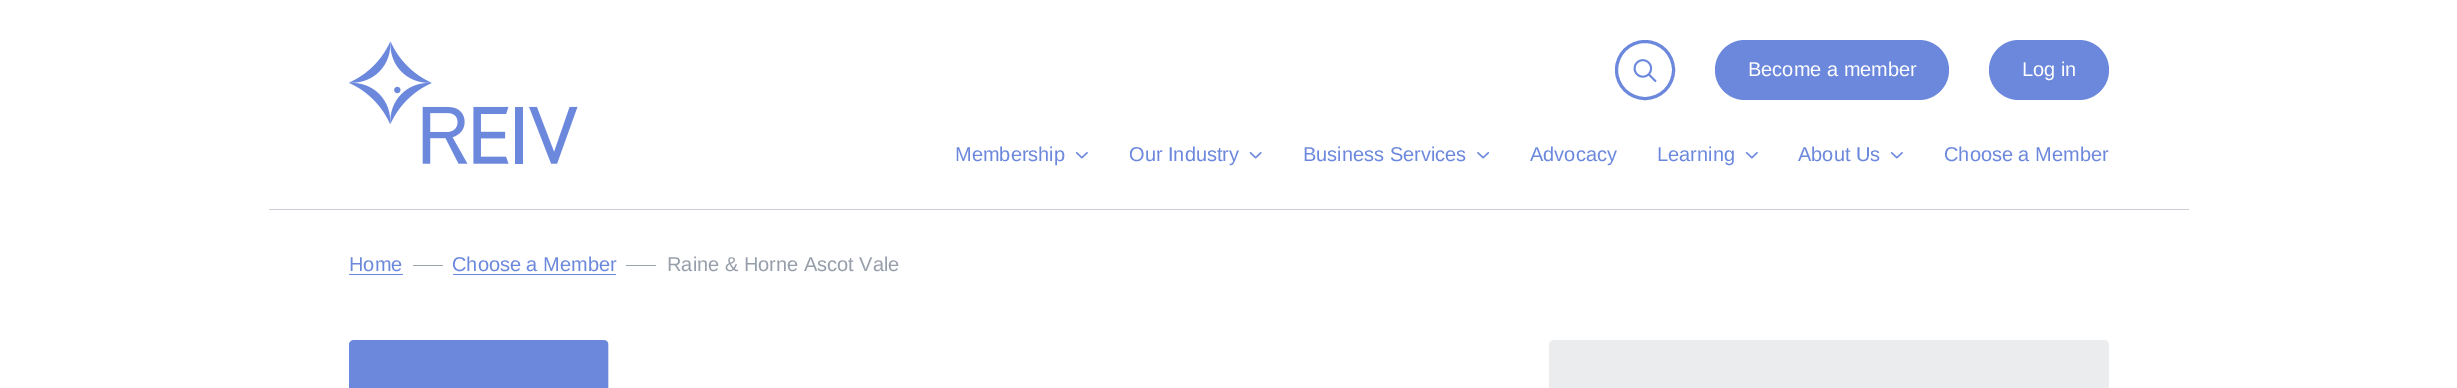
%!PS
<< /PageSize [2457 388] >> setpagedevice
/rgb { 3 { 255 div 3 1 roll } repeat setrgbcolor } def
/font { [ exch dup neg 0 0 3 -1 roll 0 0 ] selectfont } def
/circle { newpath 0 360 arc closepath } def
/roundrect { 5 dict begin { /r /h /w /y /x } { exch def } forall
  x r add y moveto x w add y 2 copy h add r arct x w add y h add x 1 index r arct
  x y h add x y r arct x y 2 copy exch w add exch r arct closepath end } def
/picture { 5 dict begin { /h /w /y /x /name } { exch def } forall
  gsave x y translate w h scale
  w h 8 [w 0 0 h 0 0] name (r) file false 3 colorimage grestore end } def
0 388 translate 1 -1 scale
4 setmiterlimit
255 255 255 rgb
0 0 2457 388 rectfill
(img/1.rgb) 349 41 229 123 picture
108 136 220 rgb
3 setlinewidth
1645 70 28.5 circle stroke
(img/2.rgb) 1633 59 24 23 picture
1715 40 234 60 30 roundrect fill
1989 40 120 60 30 roundrect fill
(img/3.rgb) 1075 152 13 7 picture
(img/4.rgb) 1249 152 13 7 picture
(img/5.rgb) 1477 152 13 7 picture
(img/3.rgb) 1745 152 13 7 picture
(img/3.rgb) 1890 152 13 7 picture
[
  [269 209 1920 1 203 207 213]
  [349 274 54 1 108 136 220]
  [413 265 30 1 149 163 171]
  [453 274 163 1 108 136 220]
  [626 265 30 1 149 163 171]
] { aload pop rgb rectfill } forall
(img/6.rgb) 349 340 260 48 picture
234 236 238 rgb
1549 340 560 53 5 roundrect fill
/LiberationSans-Regular 20 font
255 255 255 rgb
1748 76 moveto (Become a member) show
2022 76 moveto (Log in) show
108 136 220 rgb
[
  [(Membership) 955 161]
  [(Our Industry) 1129 161]
  [(Business Services) 1303 161]
  [(Advocacy) 1530 161]
  [(Learning) 1657 161]
  [(About Us) 1798 161]
  [(Choose a Member) 1944 161]
  [(Home) 349 271]
  [(Choose a Member) 452 271]
] { aload pop moveto show } forall
150 158 170 rgb
667 271 moveto (Raine & Horne Ascot Vale) show
showpage
